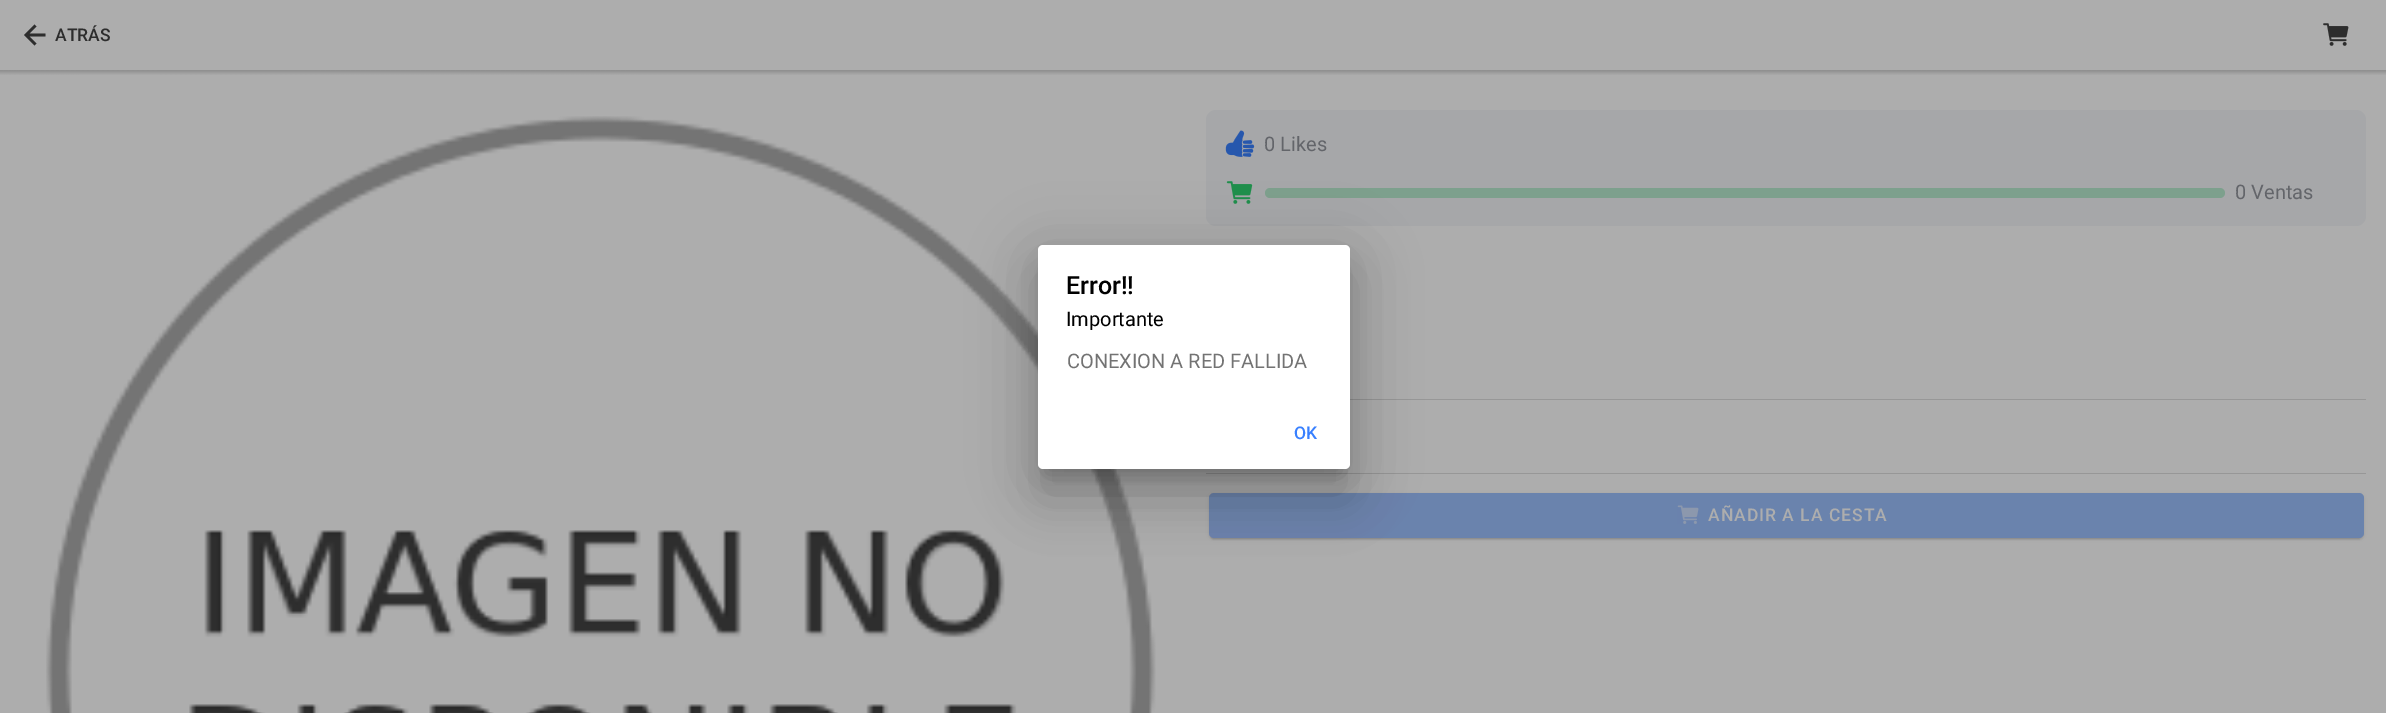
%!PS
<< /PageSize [2386 713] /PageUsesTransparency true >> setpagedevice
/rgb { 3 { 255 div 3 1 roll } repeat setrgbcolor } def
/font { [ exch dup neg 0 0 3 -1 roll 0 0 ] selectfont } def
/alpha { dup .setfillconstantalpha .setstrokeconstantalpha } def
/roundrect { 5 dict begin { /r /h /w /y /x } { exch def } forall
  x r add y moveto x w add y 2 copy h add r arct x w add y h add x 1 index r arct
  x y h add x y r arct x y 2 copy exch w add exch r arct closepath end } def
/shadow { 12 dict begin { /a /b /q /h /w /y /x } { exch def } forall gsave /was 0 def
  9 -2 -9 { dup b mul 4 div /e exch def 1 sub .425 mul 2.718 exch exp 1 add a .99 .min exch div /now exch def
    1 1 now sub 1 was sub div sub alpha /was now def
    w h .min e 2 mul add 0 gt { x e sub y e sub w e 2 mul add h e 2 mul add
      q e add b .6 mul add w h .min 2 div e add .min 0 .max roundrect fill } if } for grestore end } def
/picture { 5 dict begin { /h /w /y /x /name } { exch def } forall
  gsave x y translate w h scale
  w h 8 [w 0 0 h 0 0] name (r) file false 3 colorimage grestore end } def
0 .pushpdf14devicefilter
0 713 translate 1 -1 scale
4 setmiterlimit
173 173 173 rgb
0 0 2386 713 rectfill
45 45 45 rgb
2.8 setlinewidth
2 setlinecap
34.5 43.5 moveto 26 35 lineto 34.5 26.5 lineto 27 35 moveto 44 35 lineto stroke
(img/1.rgb) 2323 23 26 23 picture
(img/2.rgb) 0 70 2386 5 picture
(img/3.rgb) 46 116 1110 597 picture
166 167 169 rgb
1206 110 1160 116 10 roundrect fill
(img/4.rgb) 1225 130 30 27 picture
(img/5.rgb) 1226 181 27 23 picture
125 160 141 rgb
1265 188 960 10 5 roundrect fill
151 151 151 rgb
1350 399 1016 1 rectfill
1206 473 1160 1 rectfill
87 87 87 rgb
1209 494 1155 45 5 3 0.12 shadow
1209 495 1155 45 5 1 0.14 shadow
1211 499 1150 40 2.5 0.5 0.2 shadow
106 131 173 rgb
1209 493 1155 45 5 roundrect fill
(img/6.rgb) 1677 505 22 19 picture
0 0 0 rgb
1028 246 332 244 15 29 0.12 shadow
1034 271 320 232 9 24 0.14 shadow
1046 268 295 206 0 9.5 0.2 shadow
255 255 255 rgb
1038 245 312 224 5 roundrect fill
/Roboto-Medium 17.5 font
45 45 45 rgb
55 41 moveto (ATRÁS) show
/Roboto-Regular 20 font
99 101 106 rgb
1264 151 moveto (0 Likes) show
2235 199 moveto (0 Ventas) show
/Roboto-Medium 17.5 font
173 173 173 rgb
1708 521 moveto 1 0 (AÑADIR A LA CESTA) ashow
/Roboto-Medium 25 font
0 0 0 rgb
1066 294 moveto (Error!!) show
/Roboto-Regular 20 font
1066 326 moveto (Importante) show
115 115 115 rgb
1067 368 moveto (CONEXION A RED FALLIDA) show
/Roboto-Medium 17.5 font
56 128 255 rgb
1294 439 moveto (OK) show
.poppdf14devicefilter showpage
